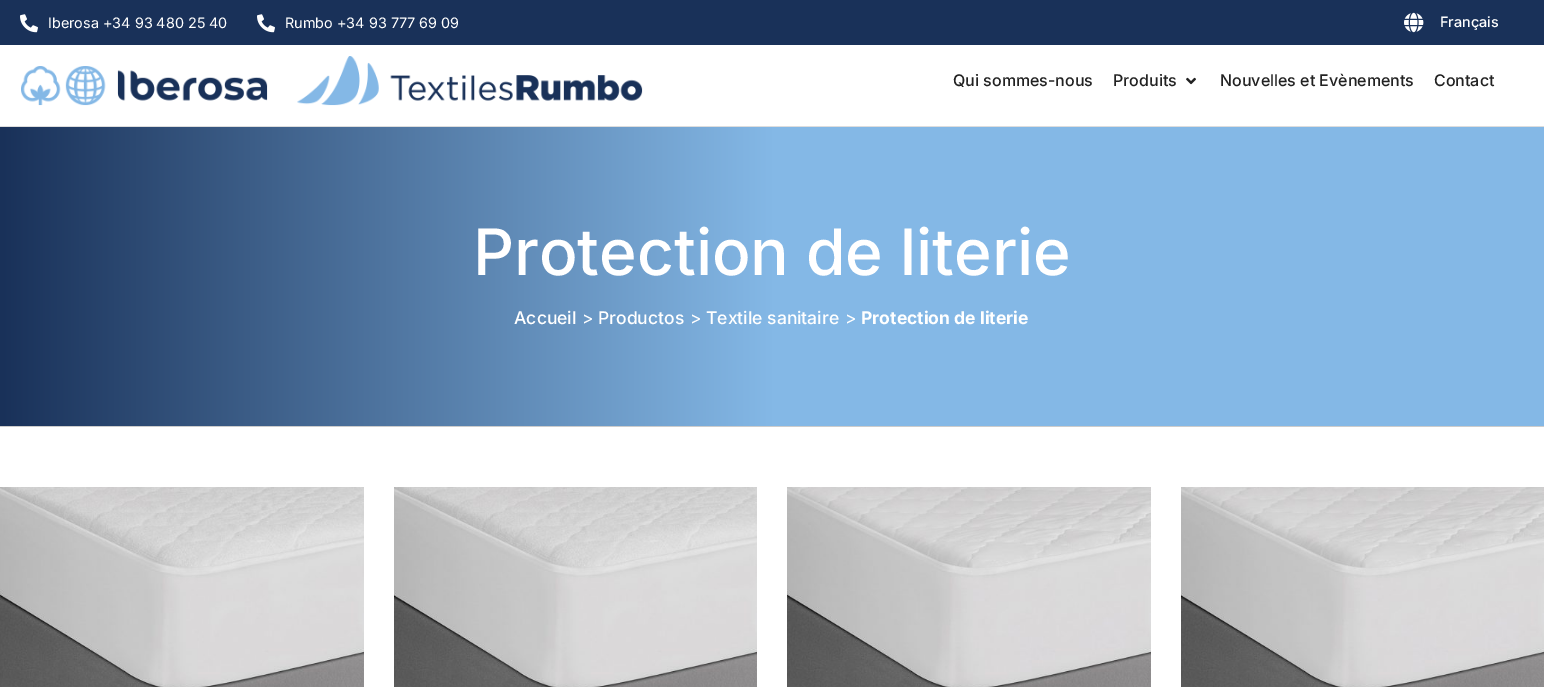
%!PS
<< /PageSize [1544 687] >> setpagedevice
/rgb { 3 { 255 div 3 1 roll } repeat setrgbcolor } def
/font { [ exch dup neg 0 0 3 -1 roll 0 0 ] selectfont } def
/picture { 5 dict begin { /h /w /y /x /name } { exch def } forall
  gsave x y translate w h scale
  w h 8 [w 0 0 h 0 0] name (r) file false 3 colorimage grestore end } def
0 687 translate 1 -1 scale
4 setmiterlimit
255 255 255 rgb
0 0 1544 687 rectfill
25 49 89 rgb
0 0 1544 45 rectfill
(img/1.rgb) 20 14 18 19 picture
(img/1.rgb) 257 14 18 19 picture
(img/2.rgb) 1404 12 20 21 picture
221 221 221 rgb
0 126 1544 1 rectfill
(img/3.rgb) 21 66 247 40 picture
(img/4.rgb) 297 56 346 50 picture
(img/5.rgb) 1186 77 10 8 picture
gsave 0 127 moveto 1544 127 lineto 1544 426 lineto 0 426 lineto closepath clip newpath
<< /ShadingType 2 /ColorSpace /DeviceRGB /Coords [1544 276 0 277] /Extend [true true] /Function << /FunctionType 3 /Domain [0 1] /Functions [<< /FunctionType 2 /Domain [0 1] /C0 [0.518 0.722 0.902] /C1 [0.518 0.722 0.902] /N 1 >> << /FunctionType 2 /Domain [0 1] /C0 [0.518 0.722 0.902] /C1 [0.098 0.192 0.349] /N 1 >>] /Bounds [0.5] /Encode [0 1 0 1] >> >> shfill grestore
204 204 204 rgb
0 426 1544 1 rectfill
(img/6.rgb) 0 487 364 200 picture
(img/7.rgb) 394 487 363 200 picture
(img/8.rgb) 787 487 364 200 picture
(img/9.rgb) 1181 487 363 200 picture
/Inter-Regular 14.4 font
255 255 255 rgb
48 28 moveto (Iberosa +34 93 480 25 40) show
285 28 moveto (Rumbo +34 93 777 69 09) show
/Inter-Medium 14.4 font
1440 27 moveto (Français) show
/Inter-Medium 16 font
34 34 34 rgb
[
  [(Qui sommes-nous) 953 86]
  [(Produits) 1113 86]
  [(Nouvelles et Evènements) 1220 86]
  [(Contact) 1434 86]
] { aload pop moveto show } forall
/Inter-Medium 64 font
255 255 255 rgb
473 275 moveto (Protection de literie) show
/Inter-Medium 17.5 font
514 324 moveto (Accueil) show
/Inter-Regular 17.5 font
582 324 moveto (>) show
/Inter-Medium 17.5 font
598 324 moveto (Productos) show
/Inter-Regular 17.5 font
690 324 moveto (>) show
/Inter-Medium 17.5 font
706 324 moveto (Textile sanitaire) show
/Inter-Regular 17.5 font
845 324 moveto (>) show
/Inter-Bold 17.5 font
861 324 moveto (Protection de literie) show
showpage
